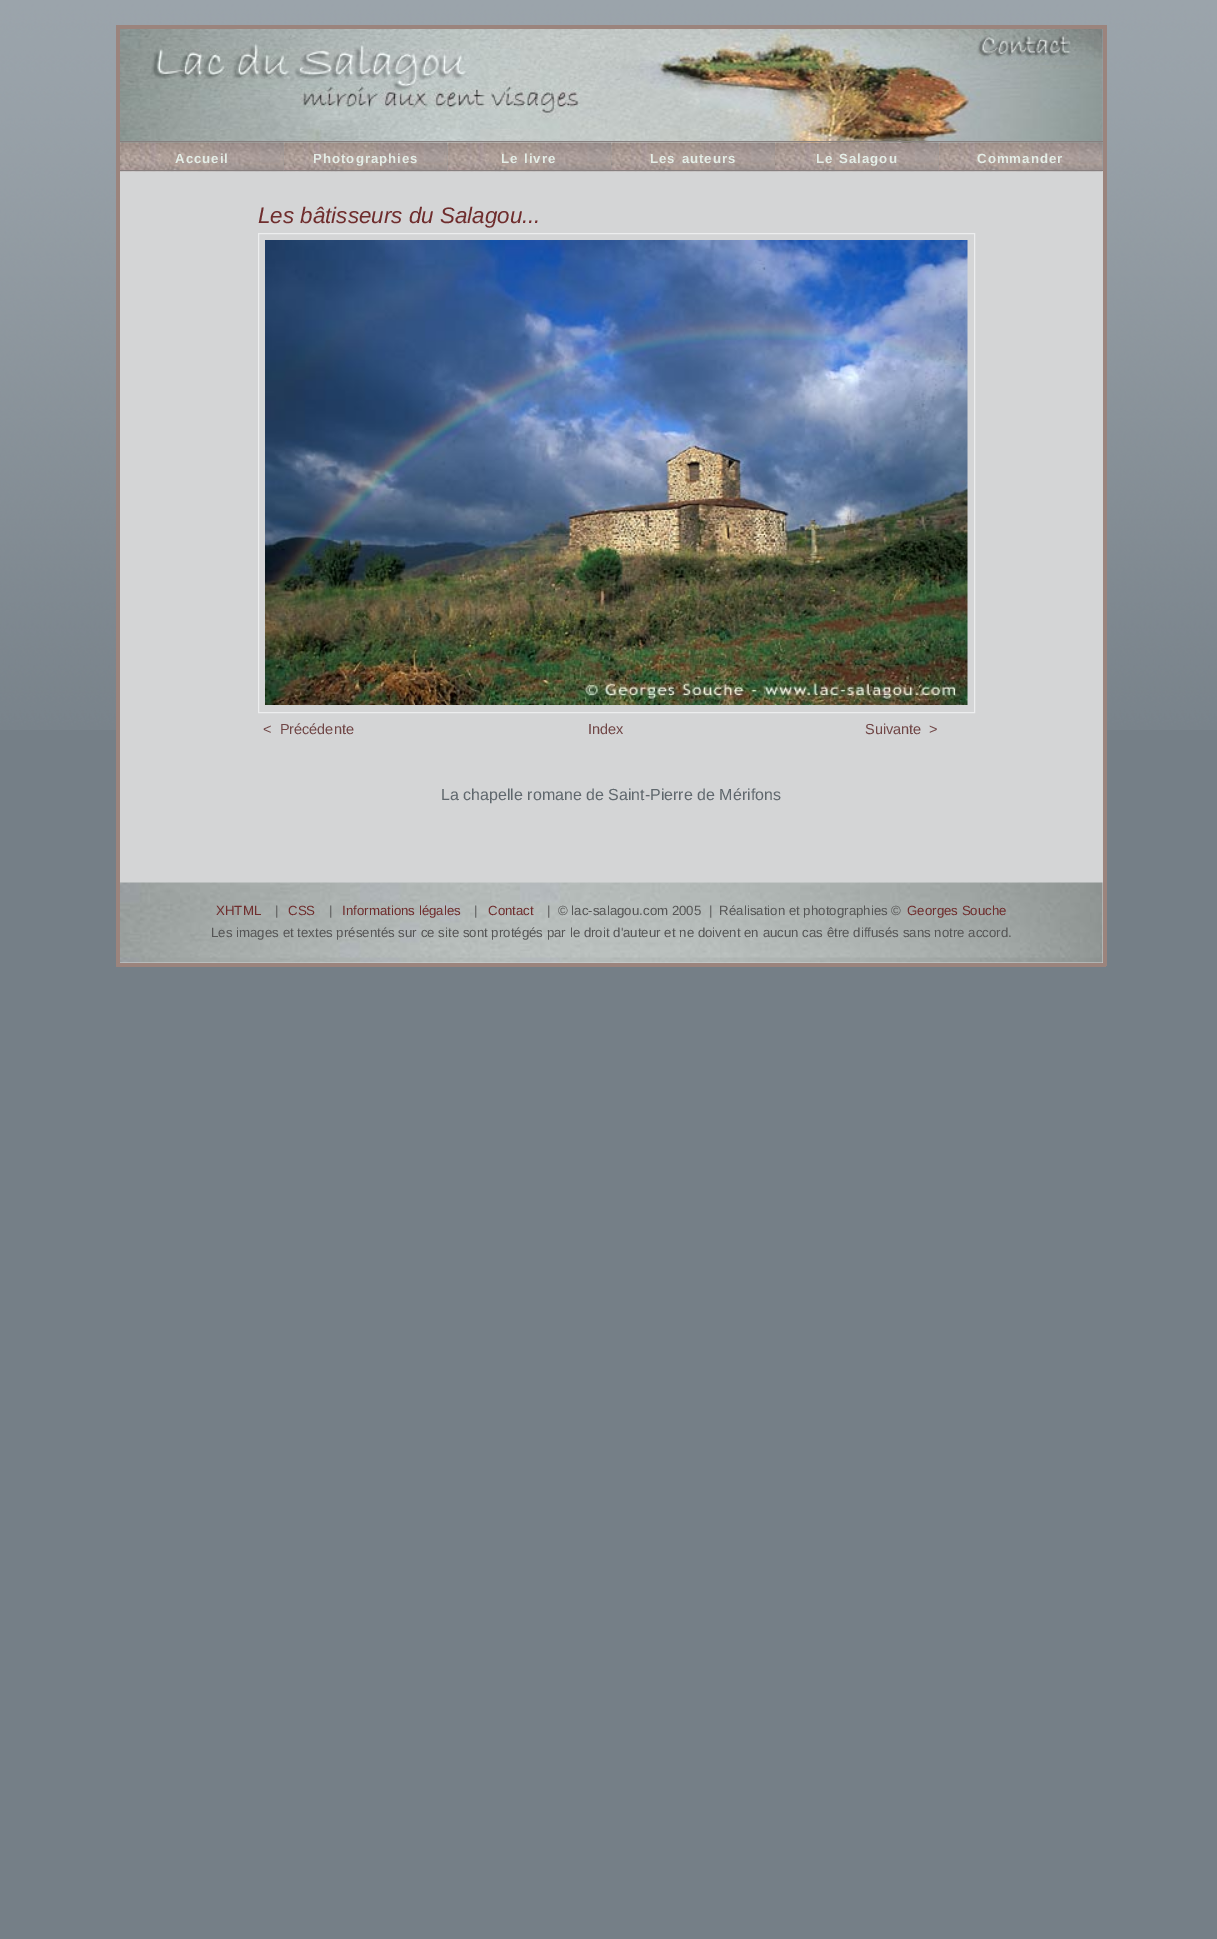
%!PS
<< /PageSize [1217 1939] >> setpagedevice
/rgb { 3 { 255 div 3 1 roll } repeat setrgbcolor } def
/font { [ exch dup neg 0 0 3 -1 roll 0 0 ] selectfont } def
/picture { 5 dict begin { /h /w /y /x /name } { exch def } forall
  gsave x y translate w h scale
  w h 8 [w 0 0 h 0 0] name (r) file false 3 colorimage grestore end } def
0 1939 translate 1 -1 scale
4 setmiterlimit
117 127 135 rgb
0 0 1217 1939 rectfill
(img/1.rgb) 0 0 1217 730 picture
(img/2.rgb) 120 29 983 116 picture
[
  [116 25 990 4 155 132 125]
  [1103 170 4 796 155 132 125]
  [1103 25 4 151 155 132 125]
  [116 963 990 4 155 132 125]
  [116 170 4 796 155 132 125]
  [116 25 4 151 155 132 125]
] { aload pop rgb rectfill } forall
(img/3.rgb) 959 30 135 35 picture
212 213 214 rgb
120 171 983 792 rectfill
(img/4.rgb) 120 142 164 30 picture
134 127 127 rgb
120 141 983 1 rectfill
120 170 164 1 rectfill
(img/5.rgb) 283 142 165 30 picture
284 170 164 1 rectfill
(img/6.rgb) 447 142 165 30 picture
448 170 163 1 rectfill
(img/7.rgb) 611 142 164 30 picture
611 170 164 1 rectfill
(img/8.rgb) 775 142 164 30 picture
775 170 164 1 rectfill
(img/9.rgb) 938 142 165 30 picture
939 170 164 1 rectfill
237 238 239 rgb
258.5 233.5 716 479 rectstroke
(img/10.rgb) 265 240 703 465 picture
(img/11.rgb) 120 882 983 81 picture
/LiberationSans-Bold 13.25 font
228 238 231 rgb
175 163 moveto 1 0 (Accueil) ashow
313 163 moveto 1 0 (Photographies) ashow
501 163 moveto 1 0 32 1 0 (Le livre) awidthshow
650 163 moveto 1 0 32 1 0 (Les auteurs) awidthshow
816 163 moveto 1 0 32 1 0 (Le Salagou) awidthshow
977 163 moveto 1 0 (Commander) ashow
/LiberationSans-Italic 22.4 font
111 45 45 rgb
258 223 moveto (Les bâtisseurs du Salagou...) show
/LiberationSans-Regular 14.5 font
112 70 70 rgb
[
  [(<  Précédente) 263 734]
  [(Index) 588 734]
  [(Suivante  >) 865 734]
] { aload pop moveto show } forall
/LiberationSans-Regular 16 font
95 103 109 rgb
441 800 moveto (La chapelle romane de Saint-Pierre de Mérifons) show
/LiberationSans-Regular 13.28 font
111 45 45 rgb
216 915 moveto (XHTML) show
85 85 85 rgb
275 915 moveto (|) show
111 45 45 rgb
288 915 moveto (CSS) show
85 85 85 rgb
329 915 moveto (|) show
111 45 45 rgb
342 915 moveto (Informations légales) show
85 85 85 rgb
474 915 moveto (|) show
111 45 45 rgb
488 915 moveto (Contact) show
85 85 85 rgb
547 915 moveto (|  © lac-salagou.com 2005  |  Réalisation et photographies ©) show
111 45 45 rgb
907 915 moveto (Georges Souche) show
85 85 85 rgb
211 937 moveto (Les images et textes présentés sur ce site sont protégés par le droit d'auteur et ne doivent en aucun cas être diffusés sans notre accord.) show
showpage
